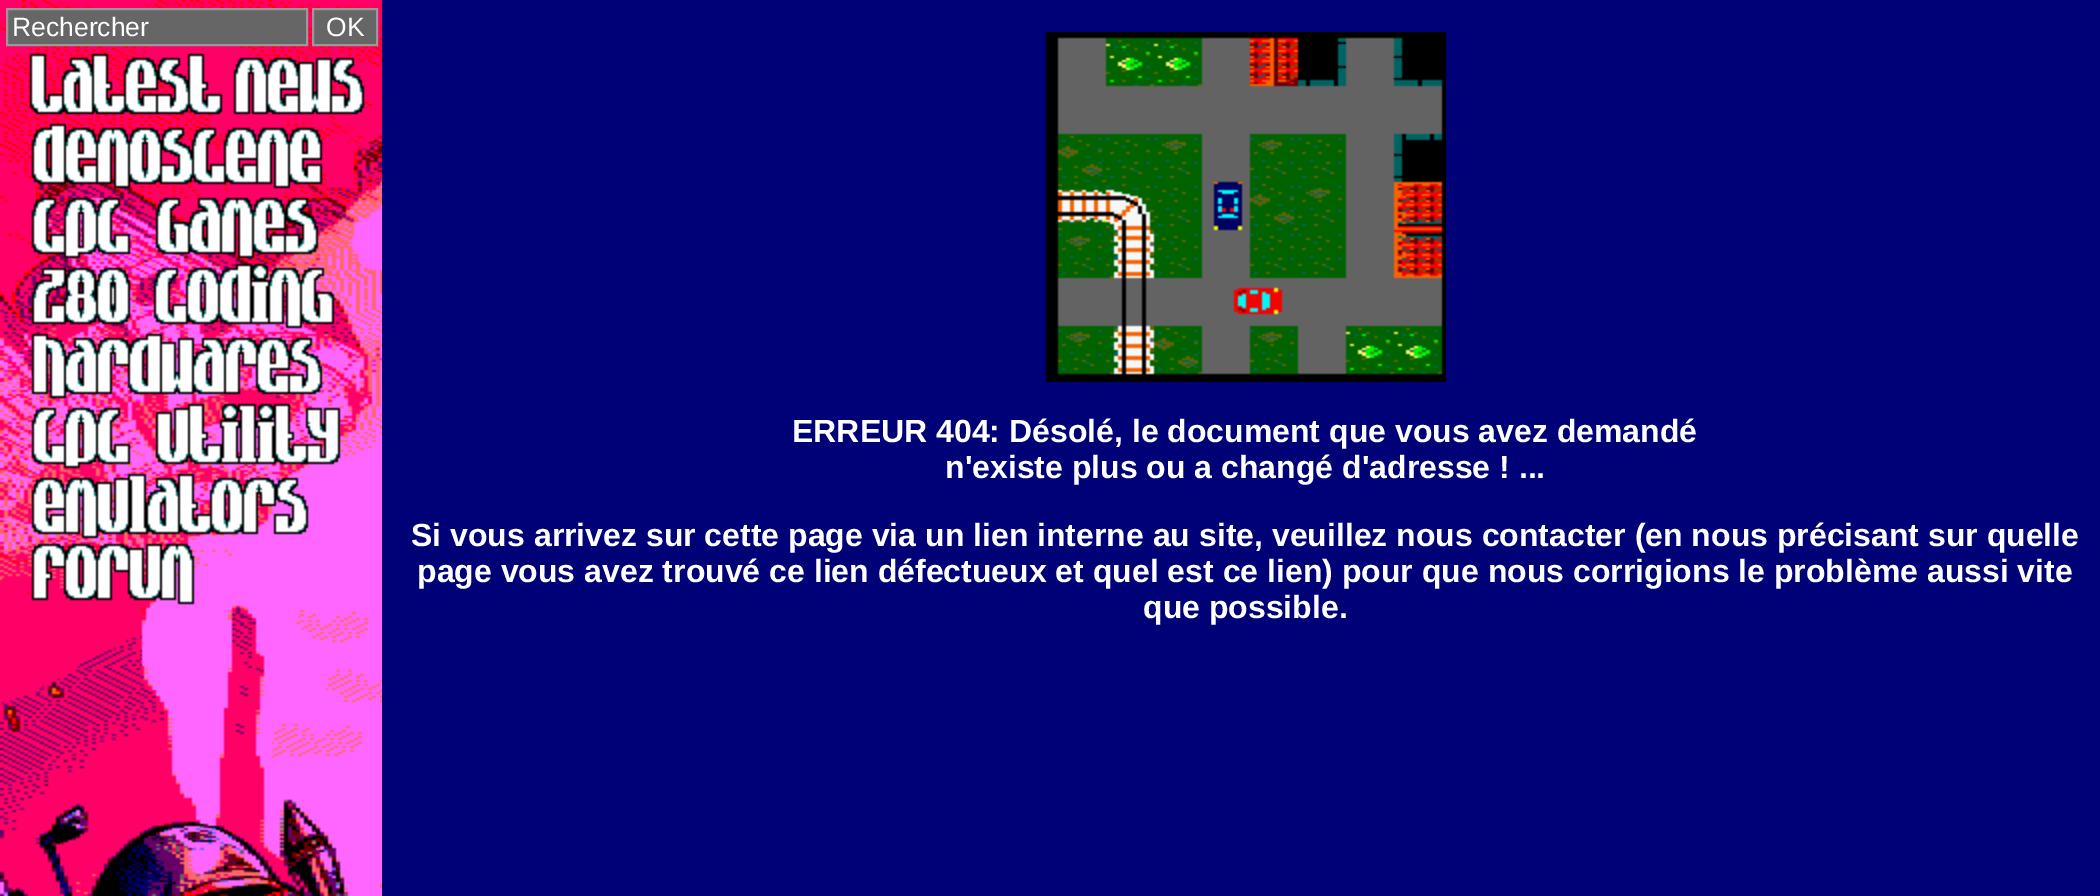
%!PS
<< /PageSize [2100 896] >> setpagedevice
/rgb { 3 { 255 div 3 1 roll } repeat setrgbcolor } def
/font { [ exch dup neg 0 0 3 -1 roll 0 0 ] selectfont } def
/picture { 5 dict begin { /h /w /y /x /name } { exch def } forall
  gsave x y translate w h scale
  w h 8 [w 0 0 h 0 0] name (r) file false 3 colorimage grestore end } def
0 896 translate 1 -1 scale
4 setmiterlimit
0 0 119 rgb
0 0 2100 896 rectfill
(img/1.rgb) 0 0 382 896 picture
102 102 102 rgb
7 9 moveto 307 9 lineto 307 45 lineto 7 45 lineto closepath gsave fill grestore
153 153 153 rgb
2 setlinewidth
stroke
102 102 102 rgb
313 9 moveto 377 9 lineto 377 45 lineto 313 45 lineto closepath gsave fill grestore
153 153 153 rgb
stroke
(img/2.rgb) 29 53 336 62 picture
(img/3.rgb) 31 123 292 66 picture
(img/4.rgb) 31 197 288 62 picture
(img/5.rgb) 31 263 304 66 picture
(img/6.rgb) 31 333 292 66 picture
(img/7.rgb) 31 403 310 66 picture
(img/8.rgb) 31 473 278 66 picture
(img/9.rgb) 31 543 164 62 picture
(img/10.rgb) 1045 32 401 350 picture
/LiberationSans-Regular 26.5 font
255 255 255 rgb
12 36 moveto (Rechercher) show
326 36 moveto (OK) show
/LiberationSans-Bold 32 font
[
  [(ERREUR 404: Désolé, le document que vous avez demandé) 792 442]
  [(n'existe plus ou a changé d'adresse ! ...) 945 478]
  [(Si vous arrivez sur cette page via un lien interne au site, veuillez nous contacter \(en nous précisant sur quelle) 411 546]
  [(page vous avez trouvé ce lien défectueux et quel est ce lien\) pour que nous corrigions le problème aussi vite) 417 582]
  [(que possible.) 1143 618]
] { aload pop moveto show } forall
showpage
